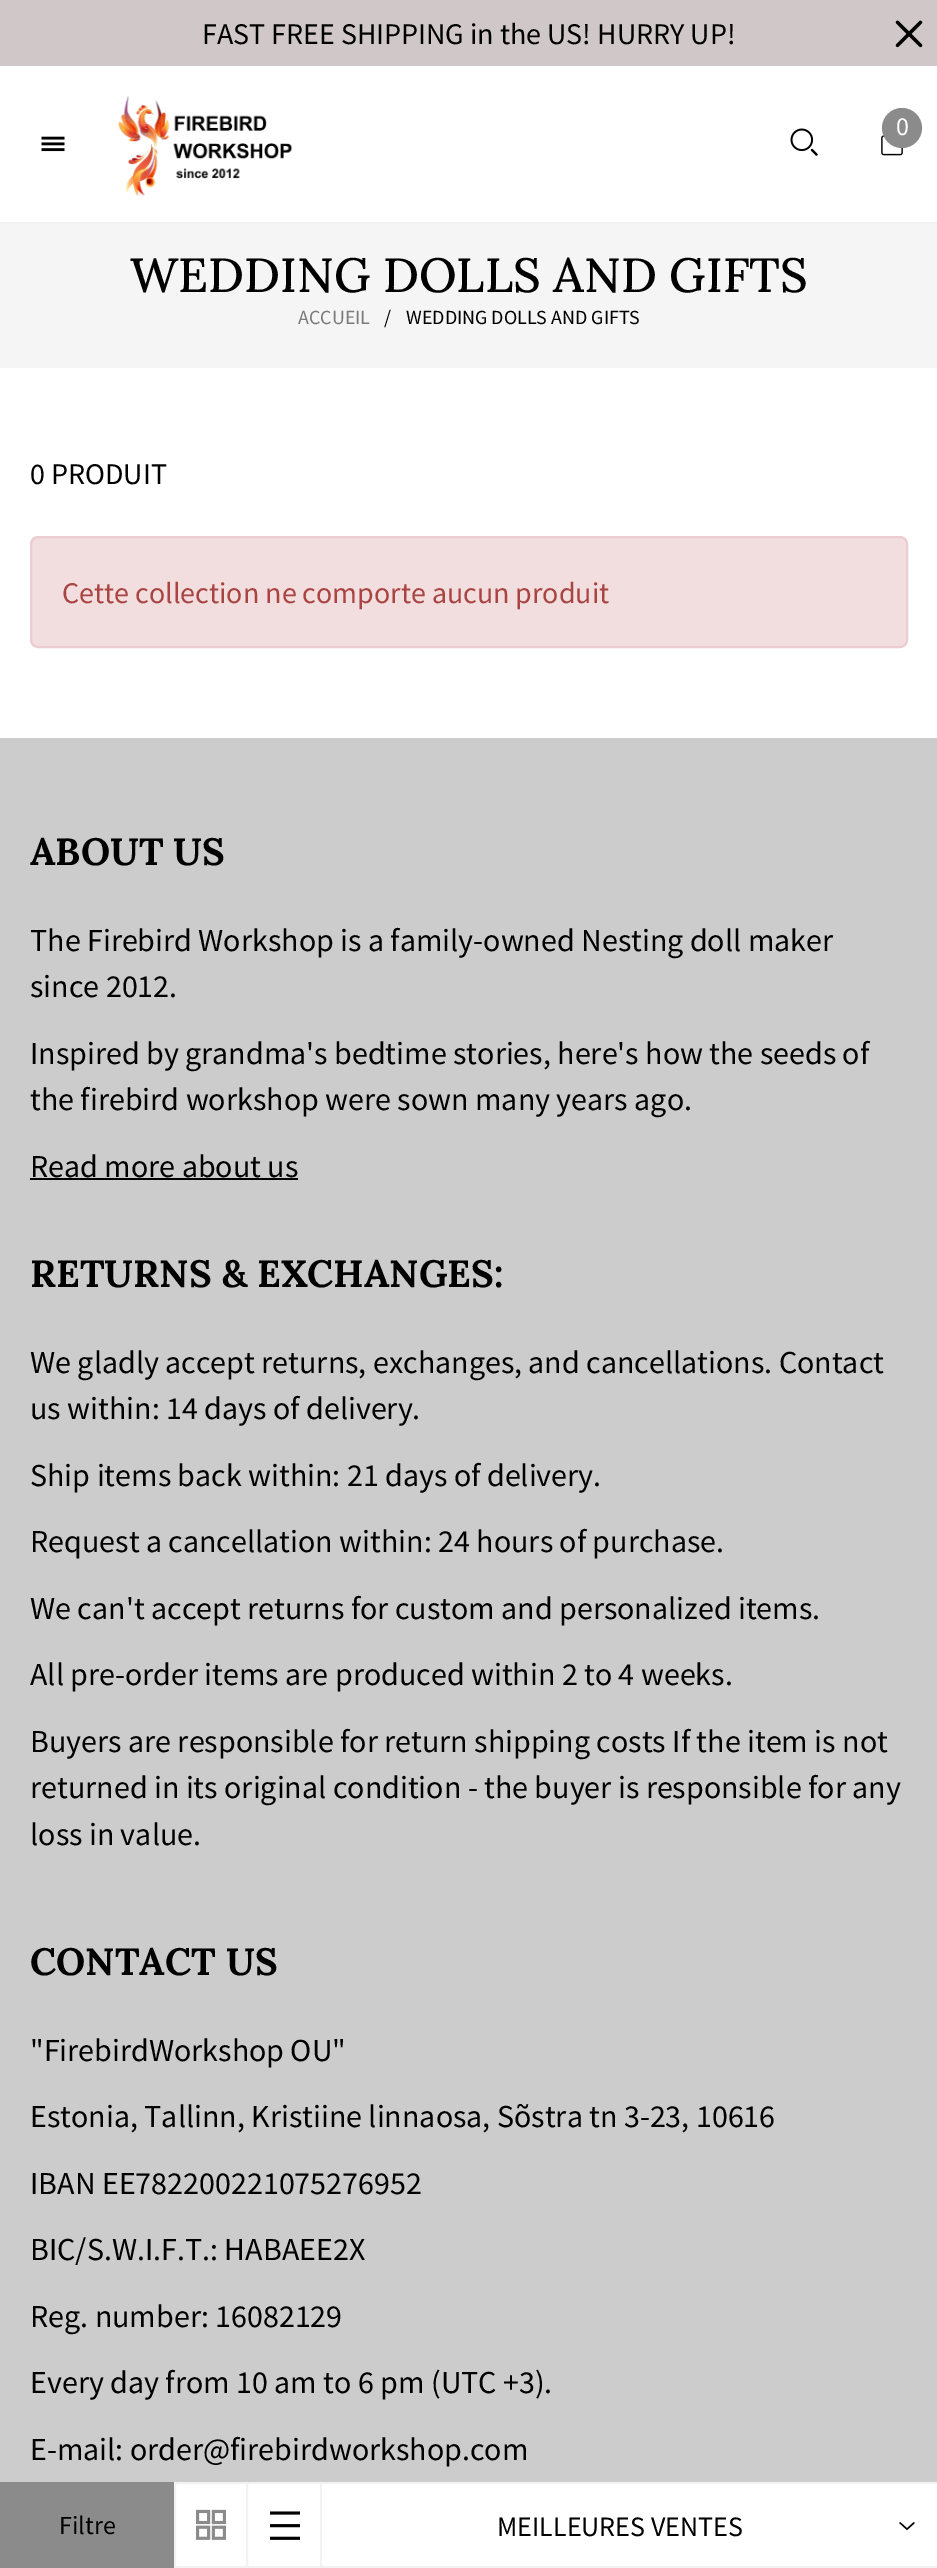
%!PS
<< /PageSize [937 2568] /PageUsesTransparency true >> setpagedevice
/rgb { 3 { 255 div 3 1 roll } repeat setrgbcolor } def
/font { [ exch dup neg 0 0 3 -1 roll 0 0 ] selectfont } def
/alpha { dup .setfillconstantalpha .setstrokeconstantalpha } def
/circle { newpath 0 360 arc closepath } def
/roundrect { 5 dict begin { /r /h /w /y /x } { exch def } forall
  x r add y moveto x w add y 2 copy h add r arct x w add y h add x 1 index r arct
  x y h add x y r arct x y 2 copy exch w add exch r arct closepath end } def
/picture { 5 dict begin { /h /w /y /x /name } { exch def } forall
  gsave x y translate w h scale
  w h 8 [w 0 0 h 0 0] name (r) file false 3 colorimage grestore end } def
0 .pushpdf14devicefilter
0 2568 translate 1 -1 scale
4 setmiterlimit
255 255 255 rgb
0 0 937 2568 rectfill
208 200 200 rgb
0 0 937 66 rectfill
(img/1.rgb) 895 20 28 28 picture
242 242 242 rgb
0 222 937 2 rectfill
(img/2.rgb) 41 136 24 16 picture
(img/3.rgb) 118 96 175 100 picture
(img/4.rgb) 790 128 28 28 picture
(img/5.rgb) 881 135 22 21 picture
139 139 139 rgb
902 128 20 circle fill
245 245 245 rgb
0 224 937 144 rectfill
139 139 139 rgb
0 2482 174 86 rectfill
242 242 242 rgb
2 setlinewidth
175 2483 72 84 rectstroke
(img/6.rgb) 196 2509 30 31 picture
248 2482 moveto 322 2482 lineto 320 2484 lineto 248 2484 lineto closepath fill
0.05 alpha
0 0 0 rgb
322 2482 moveto 322 2568 lineto 320 2566 lineto 320 2484 lineto closepath fill
322 2568 moveto 248 2568 lineto 248 2566 lineto 320 2566 lineto closepath fill
1 alpha
(img/7.rgb) 270 2511 30 29 picture
242 242 242 rgb
322 2482 615 2 rectfill
322 2566 615 2 rectfill
(img/8.rgb) 899 2522 16 9 picture
242 222 222 rgb
31 537 876 110 7 roundrect gsave fill grestore
235 204 209 rgb
stroke
204 204 204 rgb
0 738 937 1744 rectfill
0 0 0 rgb
30 1178 268 2 rectfill
/SourceSansPro-Regular 30 font
202 44 moveto (FAST FREE SHIPPING in the US! HURRY UP!) show
/SourceSansPro-Regular 26 font
255 255 255 rgb
896 135 moveto (0) show
/Lora-Medium 48 font
0 0 0 rgb
130 292 moveto (WEDDING DOLLS AND GIFTS) show
/SourceSansPro-Regular 20 font
123 123 123 rgb
298 324 moveto (ACCUEIL) show
0 0 0 rgb
384 324 moveto (/) show
406 324 moveto (WEDDING DOLLS AND GIFTS) show
/SourceSansPro-Regular 30 font
30 484 moveto (0 PRODUIT) show
/SourceSansPro-Regular 26 font
59 2534 moveto (Filtre) show
/SourceSansPro-Regular 28 font
497 2536 moveto (MEILLEURES VENTES) show
/SourceSansPro-Regular 30 font
169 68 66 rgb
62 603 moveto (Cette collection ne comporte aucun produit) show
/Lora-Bold 38 font
0 0 0 rgb
30 865 moveto (ABOUT US) show
/SourceSansPro-Regular 32 font
[
  [(The Firebird Workshop is a family-owned Nesting doll maker) 30 951]
  [(since 2012.) 30 997]
  [(Inspired by grandma's bedtime stories, here's how the seeds of) 30 1064]
  [(the firebird workshop were sown many years ago.) 30 1110]
  [(Read more about us) 30 1177]
] { aload pop moveto show } forall
/Lora-Bold 38 font
30 1287 moveto (RETURNS & EXCHANGES:) show
/SourceSansPro-Regular 32 font
[
  [(We gladly accept returns, exchanges, and cancellations. Contact) 30 1373]
  [(us within: 14 days of delivery.) 30 1419]
  [(Ship items back within: 21 days of delivery.) 30 1486]
  [(Request a cancellation within: 24 hours of purchase.) 30 1552]
  [(We can't accept returns for custom and personalized items.) 30 1619]
  [(All pre-order items are produced within 2 to 4 weeks.) 30 1685]
  [(Buyers are responsible for return shipping costs If the item is not) 30 1752]
  [(returned in its original condition - the buyer is responsible for any) 30 1798]
  [(loss in value.) 30 1845]
] { aload pop moveto show } forall
/Lora-Bold 38 font
30 1975 moveto (CONTACT US) show
/SourceSansPro-Regular 32 font
[
  [("FirebirdWorkshop OU") 30 2061]
  [(Estonia, Tallinn, Kristiine linnaosa, Sõstra tn 3-23, 10616) 30 2127]
  [(IBAN EE782200221075276952) 30 2194]
  [(BIC/S.W.I.F.T.: HABAEE2X) 30 2260]
  [(Reg. number: 16082129) 30 2327]
  [(Every day from 10 am to 6 pm \(UTC +3\).) 30 2393]
  [(E-mail: order@firebirdworkshop.com) 30 2460]
] { aload pop moveto show } forall
.poppdf14devicefilter showpage
